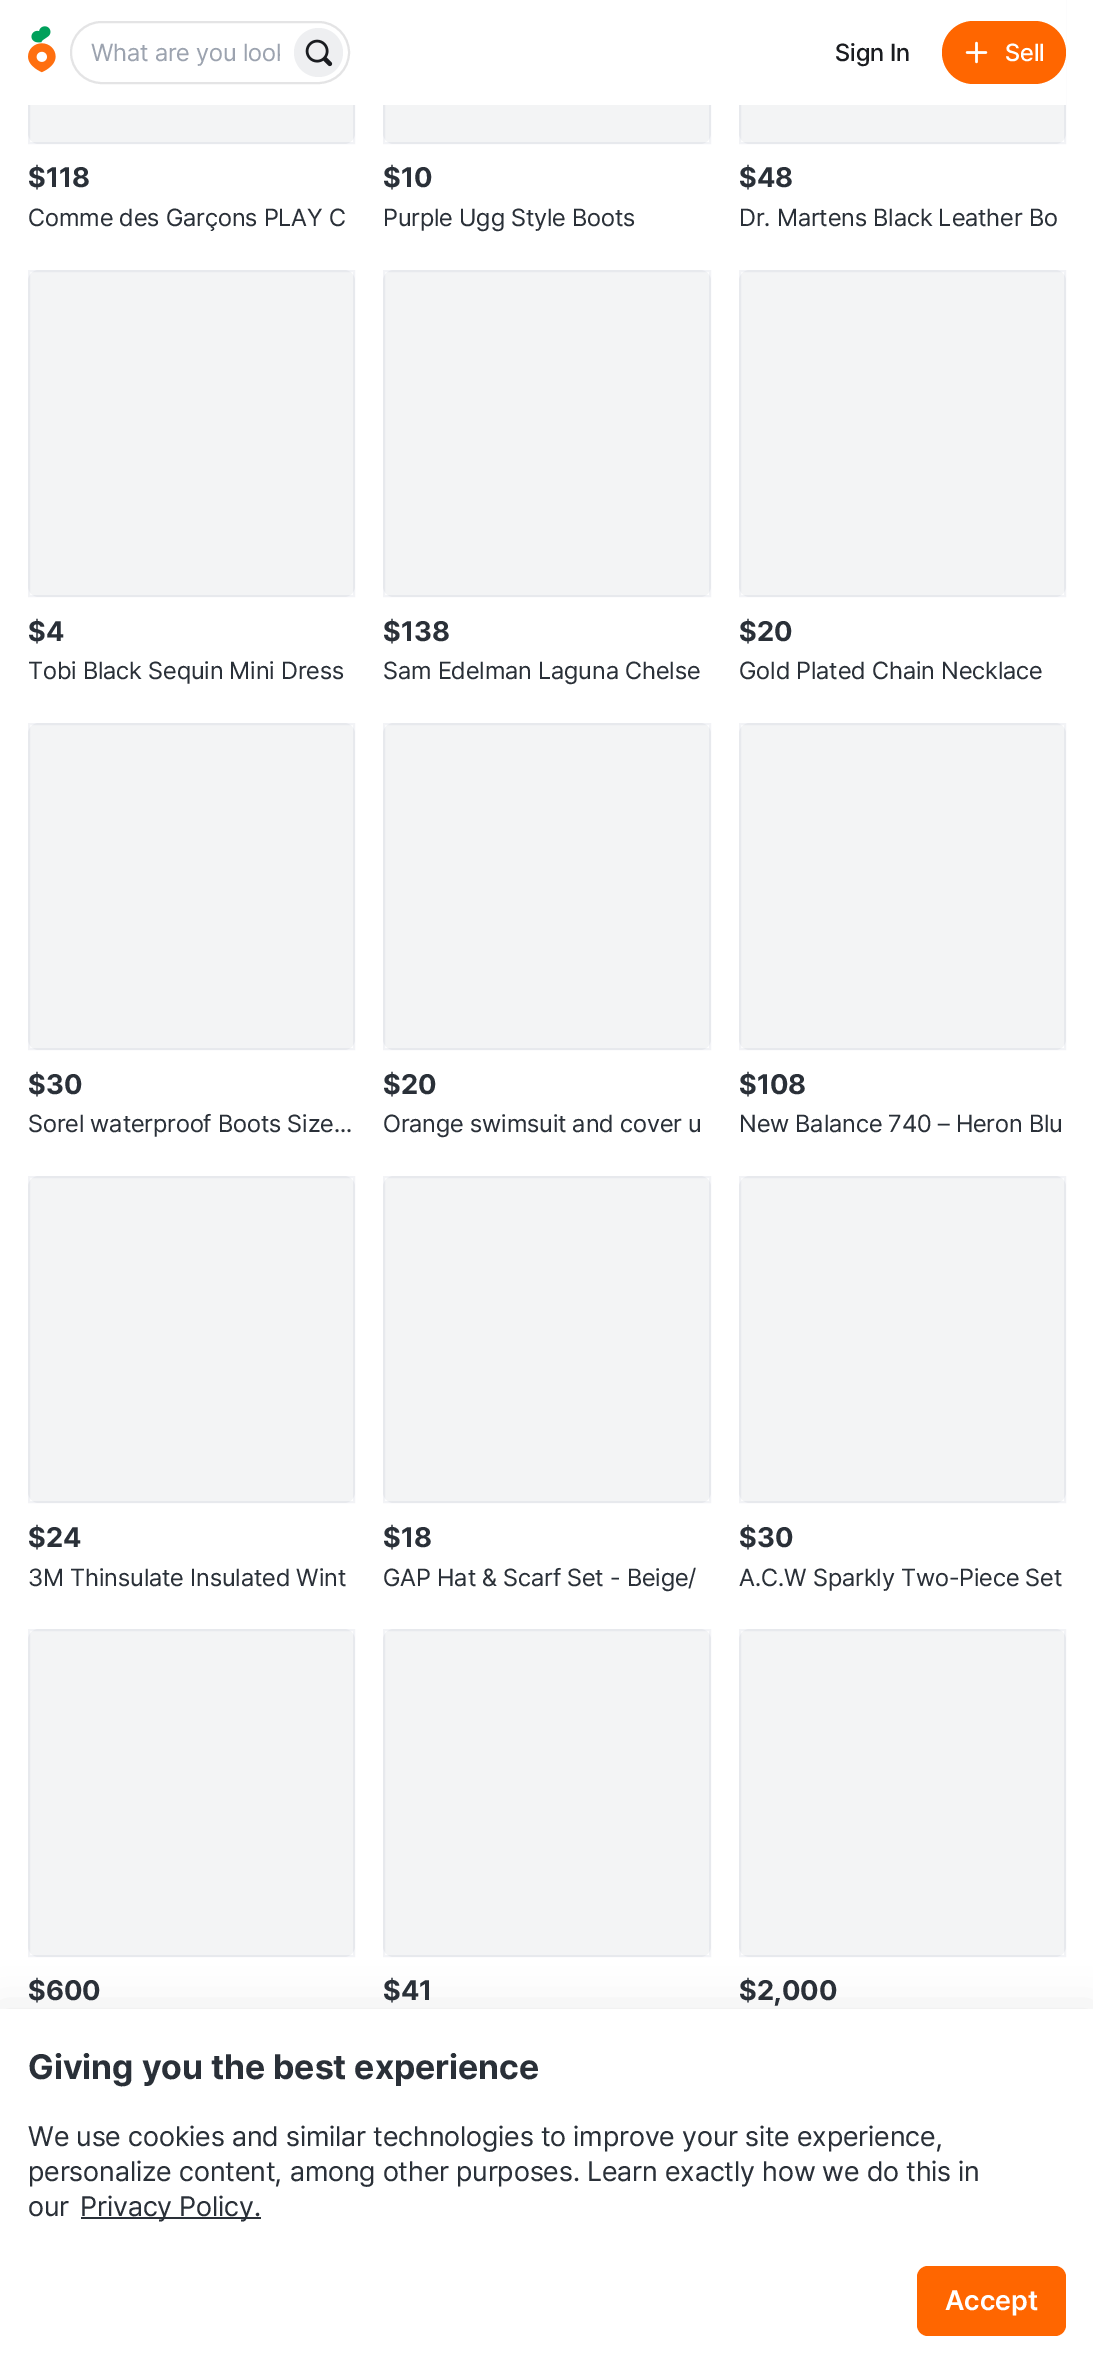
%!PS
<< /PageSize [1093 2371] /PageUsesTransparency true >> setpagedevice
/rgb { 3 { 255 div 3 1 roll } repeat setrgbcolor } def
/font { [ exch dup neg 0 0 3 -1 roll 0 0 ] selectfont } def
/alpha { dup .setfillconstantalpha .setstrokeconstantalpha } def
/circle { newpath 0 360 arc closepath } def
/roundrect { 5 dict begin { /r /h /w /y /x } { exch def } forall
  x r add y moveto x w add y 2 copy h add r arct x w add y h add x 1 index r arct
  x y h add x y r arct x y 2 copy exch w add exch r arct closepath end } def
/shadow { 12 dict begin { /a /b /q /h /w /y /x } { exch def } forall gsave /was 0 def
  9 -2 -9 { dup b mul 4 div /e exch def 1 sub .425 mul 2.718 exch exp 1 add a .99 .min exch div /now exch def
    1 1 now sub 1 was sub div sub alpha /was now def
    w h .min e 2 mul add 0 gt { x e sub y e sub w e 2 mul add h e 2 mul add
      q e add b .6 mul add w h .min 2 div e add .min 0 .max roundrect fill } if } for grestore end } def
/picture { 5 dict begin { /h /w /y /x /name } { exch def } forall
  gsave x y translate w h scale
  w h 8 [w 0 0 h 0 0] name (r) file false 3 colorimage grestore end } def
0 .pushpdf14devicefilter
0 2371 translate 1 -1 scale
4 setmiterlimit
255 255 255 rgb
0 0 1093 2371 rectfill
243 244 245 rgb
28 -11 327 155 11 roundrect fill
0.05 alpha
0 23 88 rgb
2 setlinewidth
29 -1 325 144 rectstroke
1 alpha
243 244 245 rgb
383 -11 328 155 11 roundrect fill
0.05 alpha
0 23 88 rgb
384 -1 326 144 rectstroke
1 alpha
243 244 245 rgb
739 -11 327 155 11 roundrect fill
0.05 alpha
0 23 88 rgb
740 -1 325 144 rectstroke
1 alpha
255 255 255 rgb
28 0 1038 105 rectfill
(img/1.rgb) 28 26 28 47 picture
228 228 229 rgb
71 22 278 61 30.5 roundrect stroke
238 239 241 rgb
318.5 52.5 24.5 circle fill
(img/2.rgb) 305 39 28 28 picture
255 102 0 rgb
942 21 124 63 31.5 roundrect fill
(img/3.rgb) 965 41 23 23 picture
243 244 245 rgb
28 270 327 327 11 roundrect fill
0.05 alpha
0 23 88 rgb
29 271 325 325 rectstroke
1 alpha
243 244 245 rgb
383 270 328 327 11 roundrect fill
0.05 alpha
0 23 88 rgb
384 271 326 325 rectstroke
1 alpha
243 244 245 rgb
739 270 327 327 11 roundrect fill
0.05 alpha
0 23 88 rgb
740 271 325 325 rectstroke
1 alpha
243 244 245 rgb
28 723 327 327 11 roundrect fill
0.05 alpha
0 23 88 rgb
29 724 325 325 rectstroke
1 alpha
243 244 245 rgb
383 723 328 327 11 roundrect fill
0.05 alpha
0 23 88 rgb
384 724 326 325 rectstroke
1 alpha
243 244 245 rgb
739 723 327 327 11 roundrect fill
0.05 alpha
0 23 88 rgb
740 724 325 325 rectstroke
1 alpha
243 244 245 rgb
28 1176 327 327 11 roundrect fill
0.05 alpha
0 23 88 rgb
29 1177 325 325 rectstroke
1 alpha
243 244 245 rgb
383 1176 328 327 11 roundrect fill
0.05 alpha
0 23 88 rgb
384 1177 326 325 rectstroke
1 alpha
243 244 245 rgb
739 1176 327 327 11 roundrect fill
0.05 alpha
0 23 88 rgb
740 1177 325 325 rectstroke
1 alpha
243 244 245 rgb
28 1629 327 328 11 roundrect fill
0.05 alpha
0 23 88 rgb
29 1630 325 326 rectstroke
1 alpha
243 244 245 rgb
383 1629 328 328 11 roundrect fill
0.05 alpha
0 23 88 rgb
384 1630 326 326 rectstroke
1 alpha
243 244 245 rgb
739 1629 327 328 11 roundrect fill
0.05 alpha
0 23 88 rgb
740 1630 325 326 rectstroke
1 alpha
0 0 0 rgb
0 2013 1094 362 0 21 0.1 shadow
255 255 255 rgb
0 2009 1093 362 rectfill
42 48 56 rgb
81 2217 180 2 rectfill
255 102 0 rgb
917 2266 149 70 11 roundrect fill
gsave
91 39 189 28 rectclip
/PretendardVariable-Regular 24.5 font
156 163 175 rgb
91 61 moveto (What are you look) show
grestore
/PretendardVariable-Medium 24.5 font
26 28 32 rgb
835 61 moveto (Sign In) show
255 255 255 rgb
1005 61 moveto (Sell) show
/PretendardVariable-Bold 28 font
42 48 56 rgb
28 187 moveto ($118) show
/PretendardVariable-Regular 24.5 font
28 226 moveto (Comme des Garçons PLAY C) show
/PretendardVariable-Bold 28 font
383 187 moveto ($10) show
/PretendardVariable-Regular 24.5 font
383 226 moveto (Purple Ugg Style Boots) show
/PretendardVariable-Bold 28 font
739 187 moveto ($48) show
/PretendardVariable-Regular 24.5 font
739 226 moveto (Dr. Martens Black Leather Bo) show
/PretendardVariable-Bold 28 font
28 641 moveto ($4) show
/PretendardVariable-Regular 24.5 font
28 679 moveto (Tobi Black Sequin Mini Dress) show
/PretendardVariable-Bold 28 font
383 641 moveto ($138) show
/PretendardVariable-Regular 24.5 font
383 679 moveto (Sam Edelman Laguna Chelse) show
/PretendardVariable-Bold 28 font
739 641 moveto ($20) show
/PretendardVariable-Regular 24.5 font
739 679 moveto (Gold Plated Chain Necklace) show
/PretendardVariable-Bold 28 font
28 1094 moveto ($30) show
/PretendardVariable-Regular 24.5 font
28 1132 moveto (Sorel waterproof Boots Size...) show
/PretendardVariable-Bold 28 font
383 1094 moveto ($20) show
/PretendardVariable-Regular 24.5 font
383 1132 moveto (Orange swimsuit and cover u) show
/PretendardVariable-Bold 28 font
739 1094 moveto ($108) show
/PretendardVariable-Regular 24.5 font
739 1132 moveto (New Balance 740 – Heron Blu) show
/PretendardVariable-Bold 28 font
28 1547 moveto ($24) show
/PretendardVariable-Regular 24.5 font
28 1586 moveto (3M Thinsulate Insulated Wint) show
/PretendardVariable-Bold 28 font
383 1547 moveto ($18) show
/PretendardVariable-Regular 24.5 font
383 1586 moveto (GAP Hat & Scarf Set - Beige/) show
/PretendardVariable-Bold 28 font
739 1547 moveto ($30) show
/PretendardVariable-Regular 24.5 font
739 1586 moveto (A.C.W Sparkly Two-Piece Set) show
/PretendardVariable-Bold 28 font
[
  [($600) 28 2000]
  [($41) 383 2000]
  [($2,000) 739 2000]
] { aload pop moveto show } forall
/PretendardVariable-Bold 35 font
28 2079 moveto (Giving you the best experience) show
/PretendardVariable-Regular 28 font
[
  [(We use cookies and similar technologies to improve your site experience,) 28 2146]
  [(personalize content, among other purposes. Learn exactly how we do this in) 28 2181]
  [(our) 28 2216]
  [(Privacy Policy.) 80 2216]
] { aload pop moveto show } forall
/PretendardVariable-SemiBold 28 font
255 255 255 rgb
945 2310 moveto (Accept) show
.poppdf14devicefilter showpage
